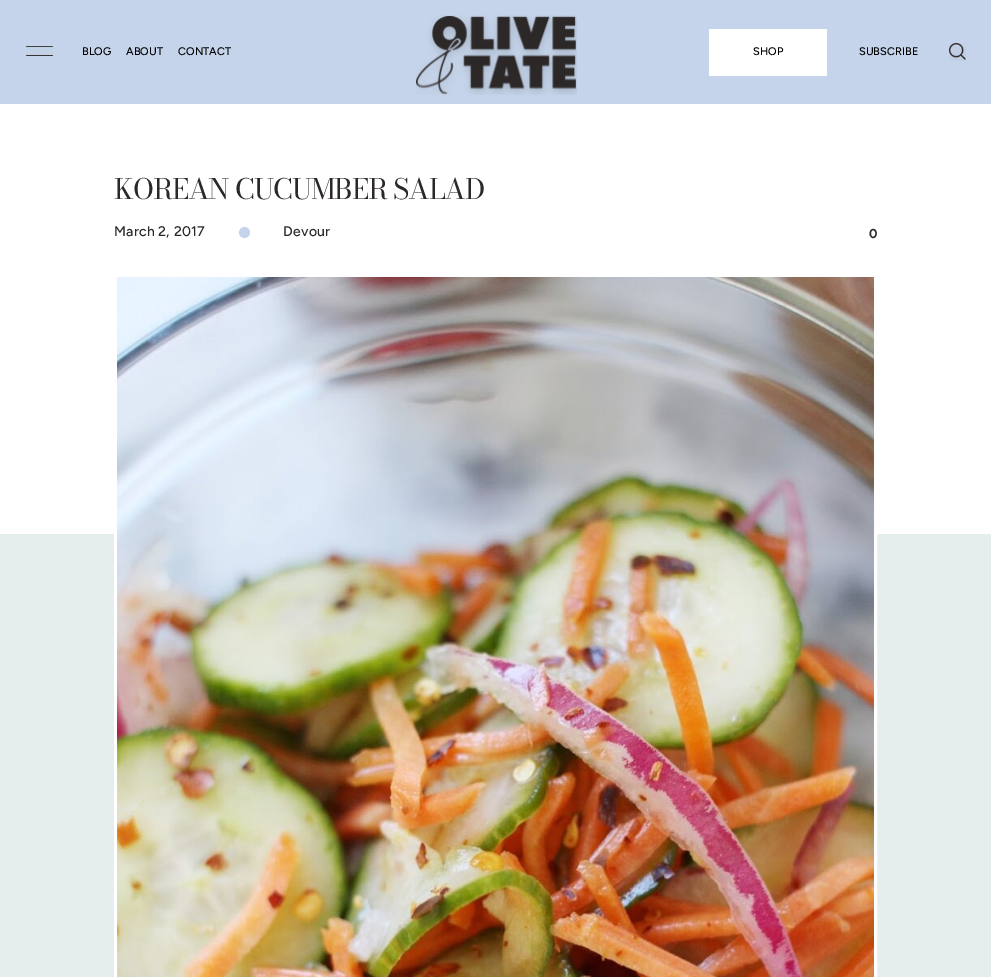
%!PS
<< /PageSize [991 977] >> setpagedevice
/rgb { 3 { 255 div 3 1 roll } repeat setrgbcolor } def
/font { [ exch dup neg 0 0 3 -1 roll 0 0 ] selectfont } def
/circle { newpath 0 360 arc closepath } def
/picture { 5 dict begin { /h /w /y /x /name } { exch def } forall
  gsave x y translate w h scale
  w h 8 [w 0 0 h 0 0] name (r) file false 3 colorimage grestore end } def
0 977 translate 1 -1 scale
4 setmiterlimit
255 255 255 rgb
0 0 991 977 rectfill
197 212 234 rgb
0 0 991 104 rectfill
(img/1.rgb) 26 46 27 10 picture
(img/2.rgb) 416 15 161 80 picture
255 255 255 rgb
709 29 118 47 rectfill
(img/3.rgb) 949 43 17 18 picture
197 212 234 rgb
244.5 232.5 5.5 circle fill
229 238 236 rgb
0 534 991 443 rectfill
255 255 255 rgb
3 setlinewidth
115.5 275.5 760 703 rectstroke
(img/4.rgb) 117 277 757 700 picture
/Figtree-Light 11 font
0 0 0 rgb
[
  [(BLOG) 82 55]
  [(ABOUT) 126 55]
  [(CONTACT) 178 55]
  [(SHOP) 753 55]
  [(SUBSCRIBE) 859 55]
] { aload pop moveto show } forall
/BodoniModa-Regular 28 font
45 40 40 rgb
114 199 moveto -1.1 0 (KOREAN CUCUMBER SALAD) ashow
/Figtree-Light 14 font
114 236 moveto 0.25 0 (March 2, 2017) ashow
283 236 moveto 0.25 0 (Devour) ashow
/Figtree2-Light 13 font
869 238 moveto (0) show
showpage
